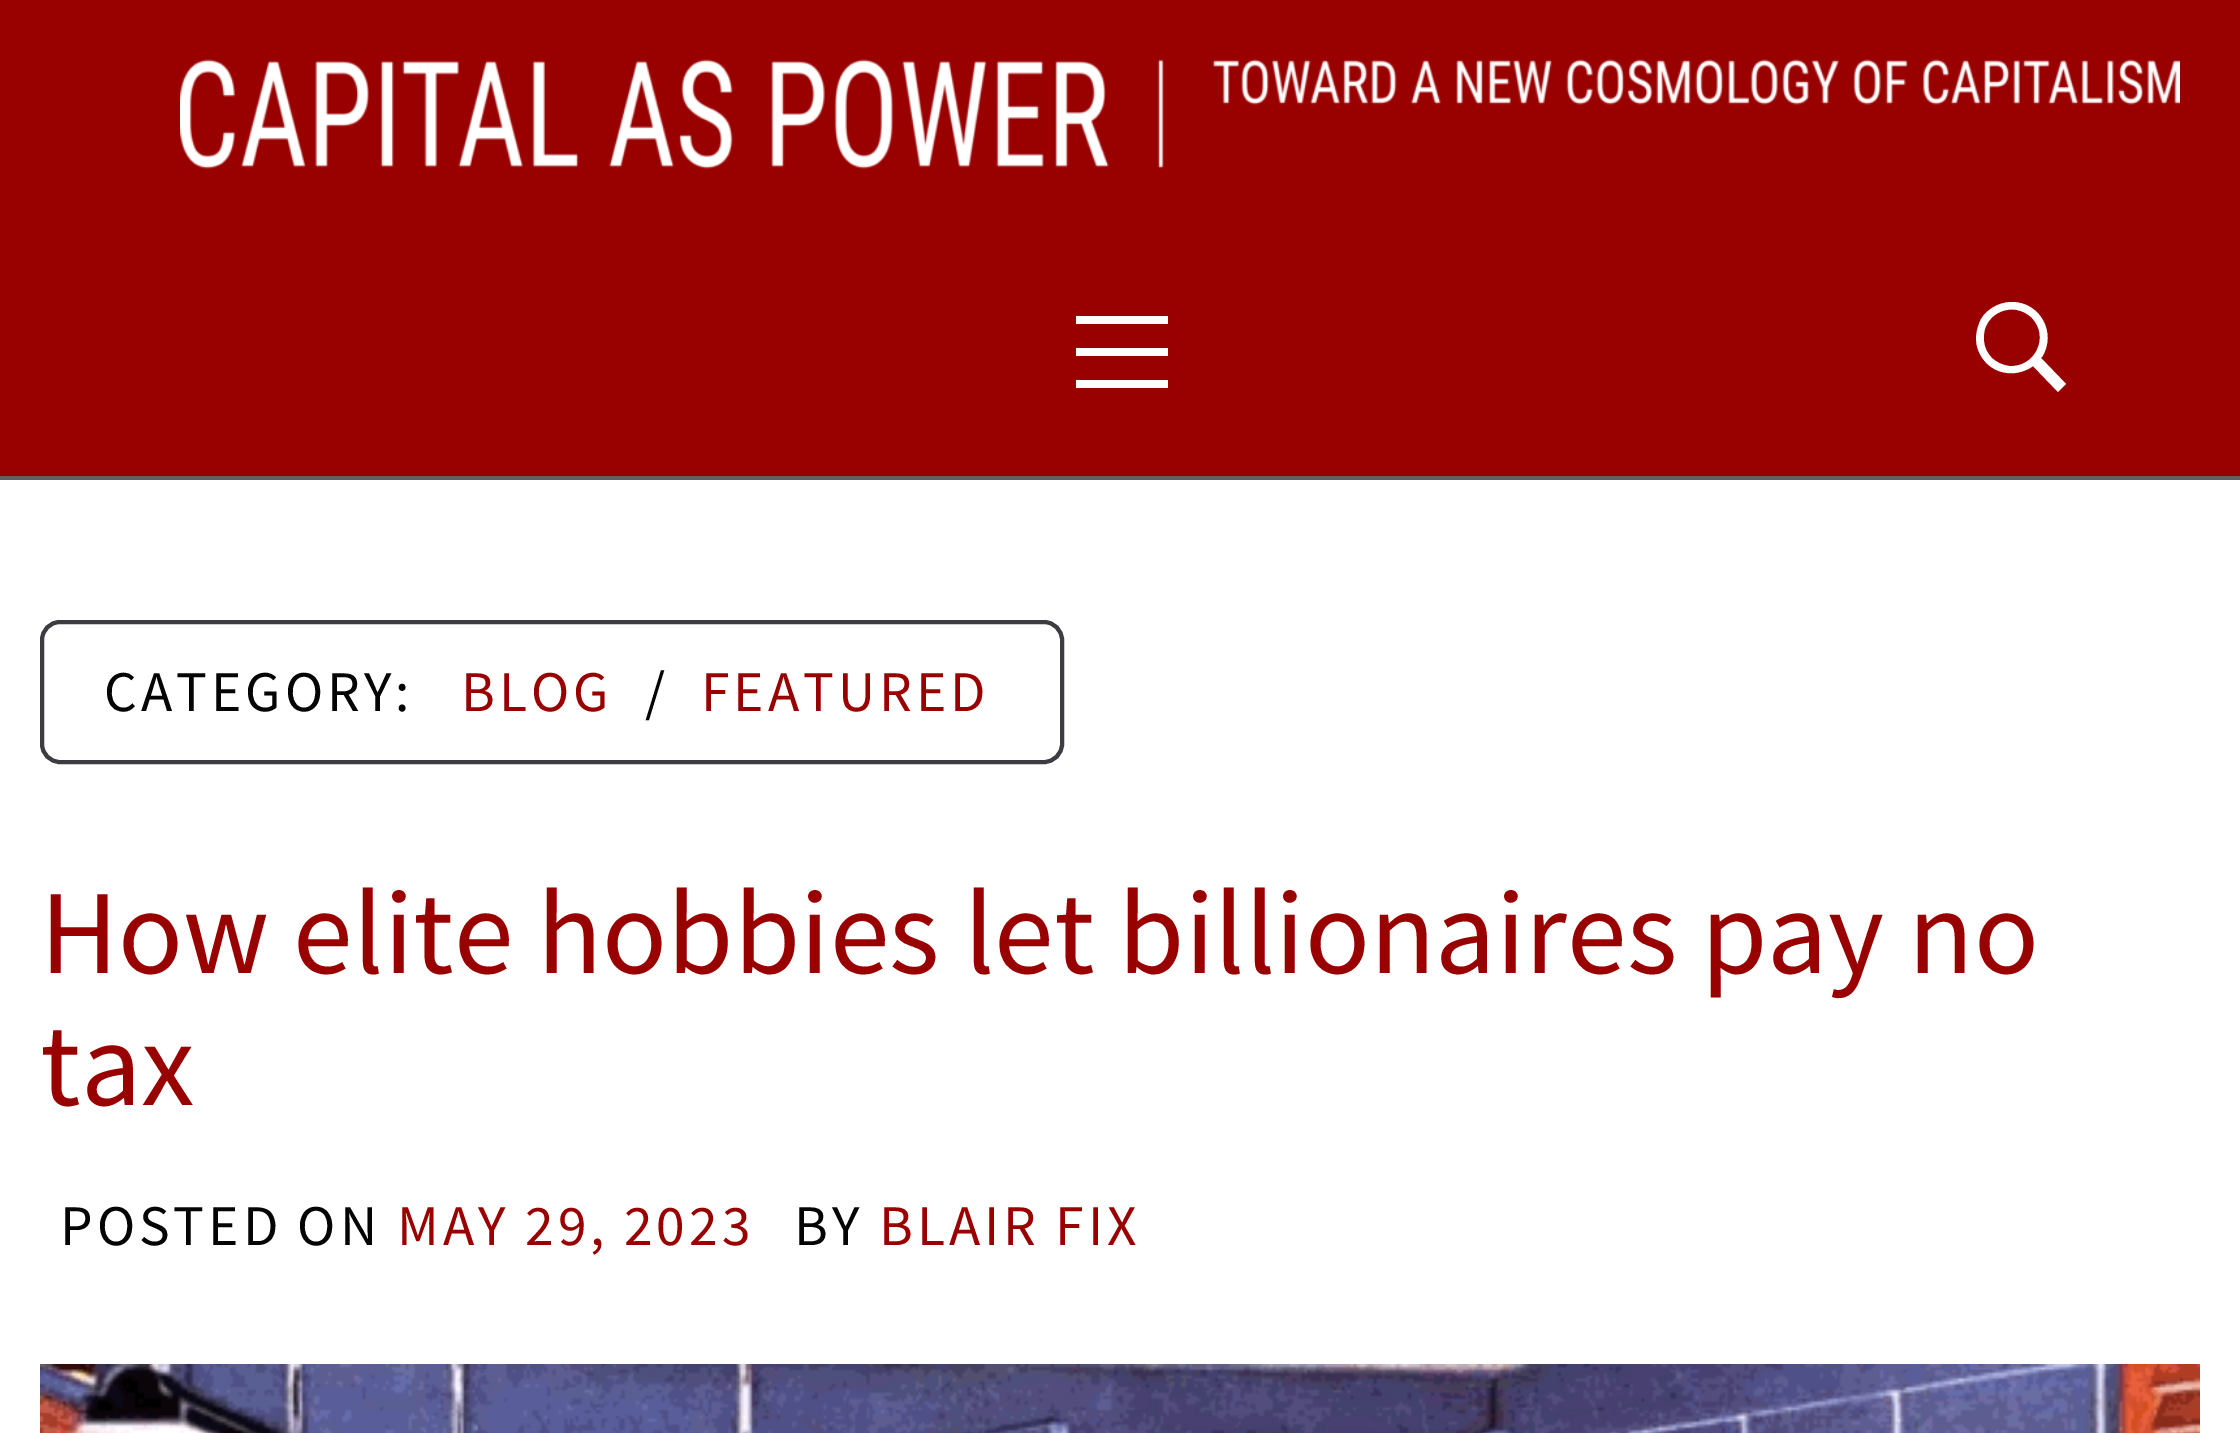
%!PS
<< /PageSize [2240 1433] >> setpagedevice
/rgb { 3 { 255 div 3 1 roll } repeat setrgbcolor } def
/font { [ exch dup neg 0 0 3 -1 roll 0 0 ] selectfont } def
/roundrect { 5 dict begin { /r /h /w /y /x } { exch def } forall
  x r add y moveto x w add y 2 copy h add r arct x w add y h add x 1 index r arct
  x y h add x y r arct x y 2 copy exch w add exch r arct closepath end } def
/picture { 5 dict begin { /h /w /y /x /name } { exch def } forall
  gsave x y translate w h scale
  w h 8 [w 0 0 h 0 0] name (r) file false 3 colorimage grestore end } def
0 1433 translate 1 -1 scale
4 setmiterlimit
255 255 255 rgb
0 0 2240 1433 rectfill
153 0 0 rgb
0 0 2240 476 rectfill
(img/1.rgb) 180 59 2000 110 picture
[
  [0 476 2240 4 97 97 97]
  [1076 348 92 8 255 255 255]
  [1076 316 92 8 255 255 255]
  [1076 380 92 8 255 255 255]
] { aload pop rgb rectfill } forall
2042 357 moveto 2041 358 lineto 2066 384 lineto 2058 392 lineto 2033 366 lineto 2015 379 1990 374 1980 354 curveto 1975 345 1975 334 1979 324 curveto 1981 317 1986 312 1992 308 curveto 1998 304 2005 302 2012 302 curveto 2040 302 2057 333 2042 357 curveto closepath 2032 318 moveto 2013 299 1981 314 1984 340 curveto 1984 347 1987 353 1992 358 curveto 1996 362 2002 365 2009 366 curveto 2035 368 2050 337 2032 318 curveto closepath fill
60 60 66 rgb
4 setlinewidth
42 622 1020 140 18 roundrect stroke
(img/2.rgb) 40 1364 2160 69 picture
/SourceSansPro-Regular 57.5 font
4 4 4 rgb
104 711 moveto 4 0 (CATEGORY:) ashow
153 0 0 rgb
461 711 moveto 4 0 (BLOG) ashow
4 4 4 rgb
645 711 moveto 4 0 (/) ashow
153 0 0 rgb
701 711 moveto 4 0 (FEATURED) ashow
/SourceSansPro-Regular 120 font
40 973 moveto (How elite hobbies let billionaires pay no) show
40 1105 moveto (tax) show
/SourceSansPro-Regular 57.5 font
4 4 4 rgb
60 1245 moveto 4 0 (POSTED ON) ashow
153 0 0 rgb
397 1245 moveto 4 0 (MAY 29, 2023) ashow
4 4 4 rgb
794 1245 moveto 4 0 (BY) ashow
153 0 0 rgb
879 1245 moveto 4 0 (BLAIR FIX) ashow
showpage
